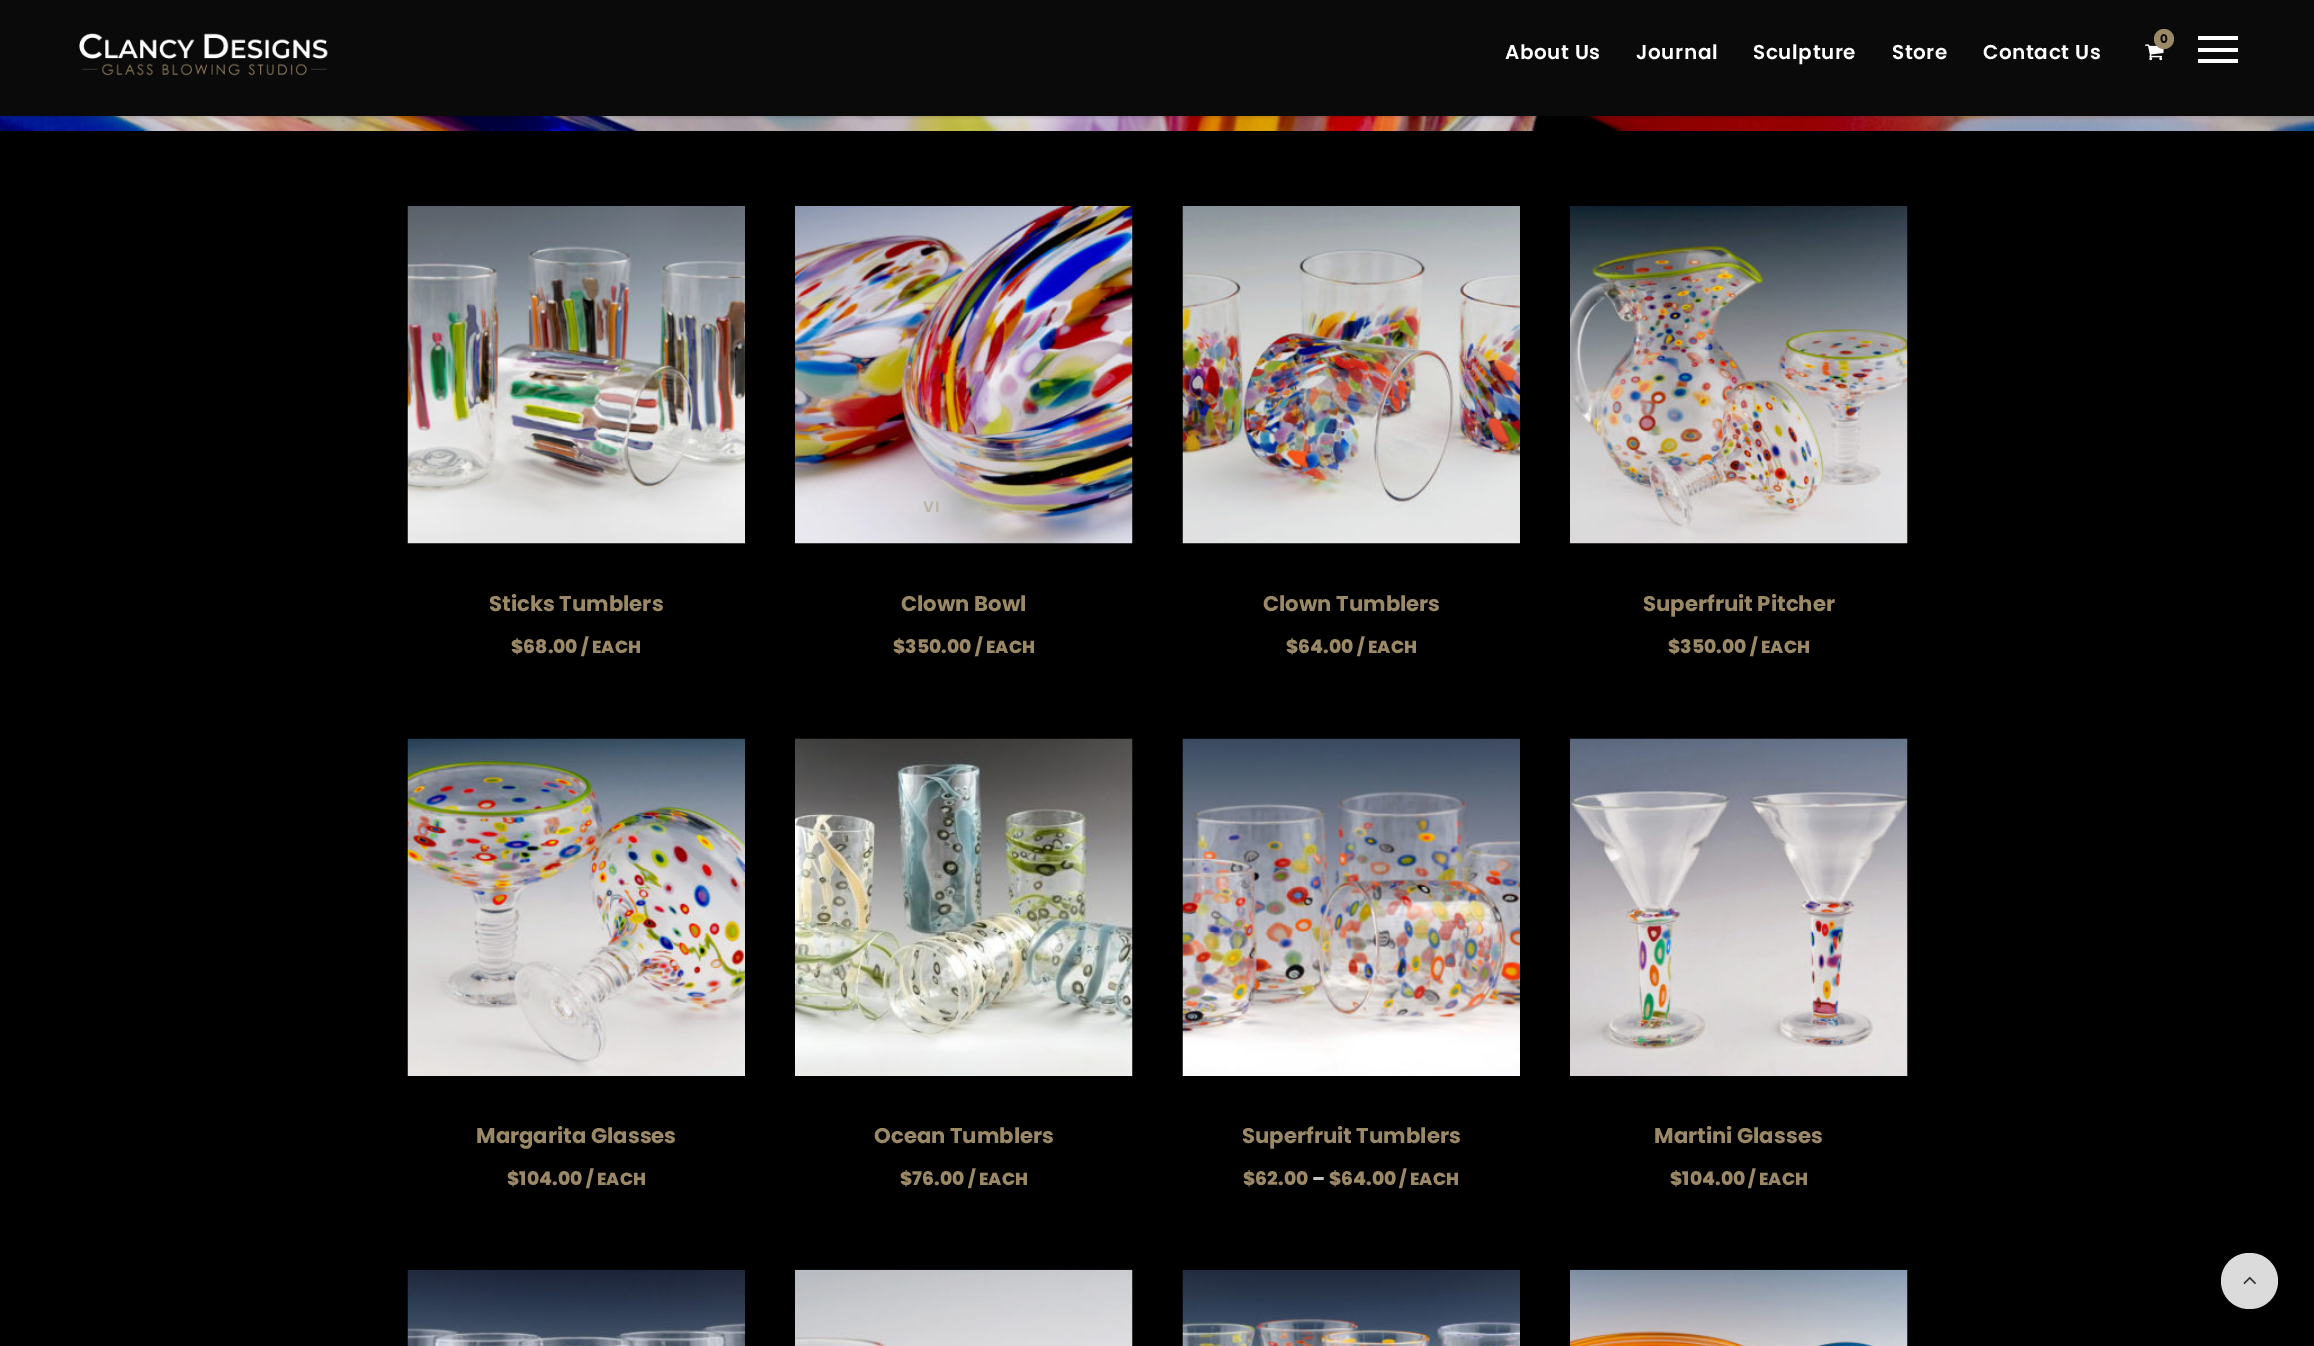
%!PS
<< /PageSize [2314 1346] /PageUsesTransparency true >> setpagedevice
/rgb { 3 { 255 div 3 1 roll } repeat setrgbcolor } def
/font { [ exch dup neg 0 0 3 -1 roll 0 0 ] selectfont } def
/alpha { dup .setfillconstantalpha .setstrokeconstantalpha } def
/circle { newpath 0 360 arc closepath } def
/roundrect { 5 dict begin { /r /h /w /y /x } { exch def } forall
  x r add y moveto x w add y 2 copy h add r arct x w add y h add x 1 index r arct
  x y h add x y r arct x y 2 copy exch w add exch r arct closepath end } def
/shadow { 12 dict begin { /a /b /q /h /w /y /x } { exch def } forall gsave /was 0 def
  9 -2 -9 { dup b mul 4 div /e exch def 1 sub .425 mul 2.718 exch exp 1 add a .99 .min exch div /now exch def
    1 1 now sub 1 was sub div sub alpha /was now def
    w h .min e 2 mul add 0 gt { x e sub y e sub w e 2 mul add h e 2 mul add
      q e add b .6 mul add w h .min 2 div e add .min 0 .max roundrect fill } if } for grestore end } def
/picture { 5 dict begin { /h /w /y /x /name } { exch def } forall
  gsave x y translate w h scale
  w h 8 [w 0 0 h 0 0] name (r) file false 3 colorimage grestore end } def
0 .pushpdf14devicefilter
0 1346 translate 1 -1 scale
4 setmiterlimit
0 0 0 rgb
0 0 2314 1346 rectfill
(img/3.rgb) 0 116 2314 15 picture
0 1 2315 117 0 1 0.1 shadow
10 10 10 rgb
0 0 2314 116 rectfill
(img/1.rgb) 79 33 249 43 picture
(img/2.rgb) 2145 44 19 17 picture
155 136 102 rgb
2164 39 10 circle fill
[
  [2198 36 40 4 255 255 255]
  [2198 48 40 4 255 255 255]
  [2198 59 40 4 255 255 255]
] { aload pop rgb rectfill } forall
(img/4.rgb) 407 206 338 338 picture
(img/5.rgb) 795 206 338 338 picture
(img/6.rgb) 1182 206 338 338 picture
(img/7.rgb) 1570 206 338 338 picture
(img/8.rgb) 407 738 338 338 picture
(img/9.rgb) 795 738 338 338 picture
(img/10.rgb) 1182 738 338 338 picture
(img/11.rgb) 1570 738 338 338 picture
(img/12.rgb) 407 1269 338 77 picture
(img/13.rgb) 795 1269 338 77 picture
(img/14.rgb) 1182 1269 338 77 picture
(img/15.rgb) 1570 1269 338 77 picture
219 219 219 rgb
2221 1253 57 56 28 roundrect fill
(img/16.rgb) 2243 1276 13 9 picture
/Poppins-Bold 12 font
10 10 10 rgb
2160 43 moveto (0) show
/Poppins-SemiBold 20 font
255 255 255 rgb
1505 59 moveto 0.6 0 (About Us) ashow
1636 59 moveto 0.6 0 (Journal) ashow
1753 59 moveto 0.6 0 (Sculpture) ashow
1892 59 moveto 0.6 0 (Store) ashow
1983 59 moveto 0.6 0 (Contact Us) ashow
/Poppins-Bold 21.25 font
155 136 102 rgb
489 611 moveto (Sticks Tumblers) show
/Poppins-ExtraBold 18.75 font
511 653 moveto ($68.00) show
/Poppins-ExtraBold 17.5 font
581 653 moveto (/ EACH) show
/Poppins-Bold 15 font
186 181 167 rgb
923 512 moveto 1 0 (VI) ashow
/Poppins-Bold 21.25 font
155 136 102 rgb
901 611 moveto (Clown Bowl) show
/Poppins-ExtraBold 18.75 font
893 653 moveto ($350.00) show
/Poppins-ExtraBold 17.5 font
975 653 moveto (/ EACH) show
/Poppins-Bold 21.25 font
1263 611 moveto (Clown Tumblers) show
/Poppins-ExtraBold 18.75 font
1286 653 moveto ($64.00) show
/Poppins-ExtraBold 17.5 font
1357 653 moveto (/ EACH) show
/Poppins-Bold 21.25 font
1643 611 moveto (Superfruit Pitcher) show
/Poppins-ExtraBold 18.75 font
1668 653 moveto ($350.00) show
/Poppins-ExtraBold 17.5 font
1750 653 moveto (/ EACH) show
/Poppins-Bold 21.25 font
476 1143 moveto (Margarita Glasses) show
/Poppins-ExtraBold 18.75 font
507 1185 moveto ($104.00) show
/Poppins-ExtraBold 17.5 font
586 1185 moveto (/ EACH) show
/Poppins-Bold 21.25 font
874 1143 moveto (Ocean Tumblers) show
/Poppins-ExtraBold 18.75 font
900 1185 moveto ($76.00) show
/Poppins-ExtraBold 17.5 font
968 1185 moveto (/ EACH) show
/Poppins-Bold 21.25 font
1242 1143 moveto (Superfruit Tumblers) show
/Poppins-ExtraBold 18.75 font
1243 1185 moveto ($62.00) show
197 195 195 rgb
1312 1185 moveto (–) show
155 136 102 rgb
1329 1185 moveto ($64.00) show
/Poppins-ExtraBold 17.5 font
1399 1185 moveto (/ EACH) show
/Poppins-Bold 21.25 font
1654 1143 moveto (Martini Glasses) show
/Poppins-ExtraBold 18.75 font
1670 1185 moveto ($104.00) show
/Poppins-ExtraBold 17.5 font
1748 1185 moveto (/ EACH) show
.poppdf14devicefilter showpage
